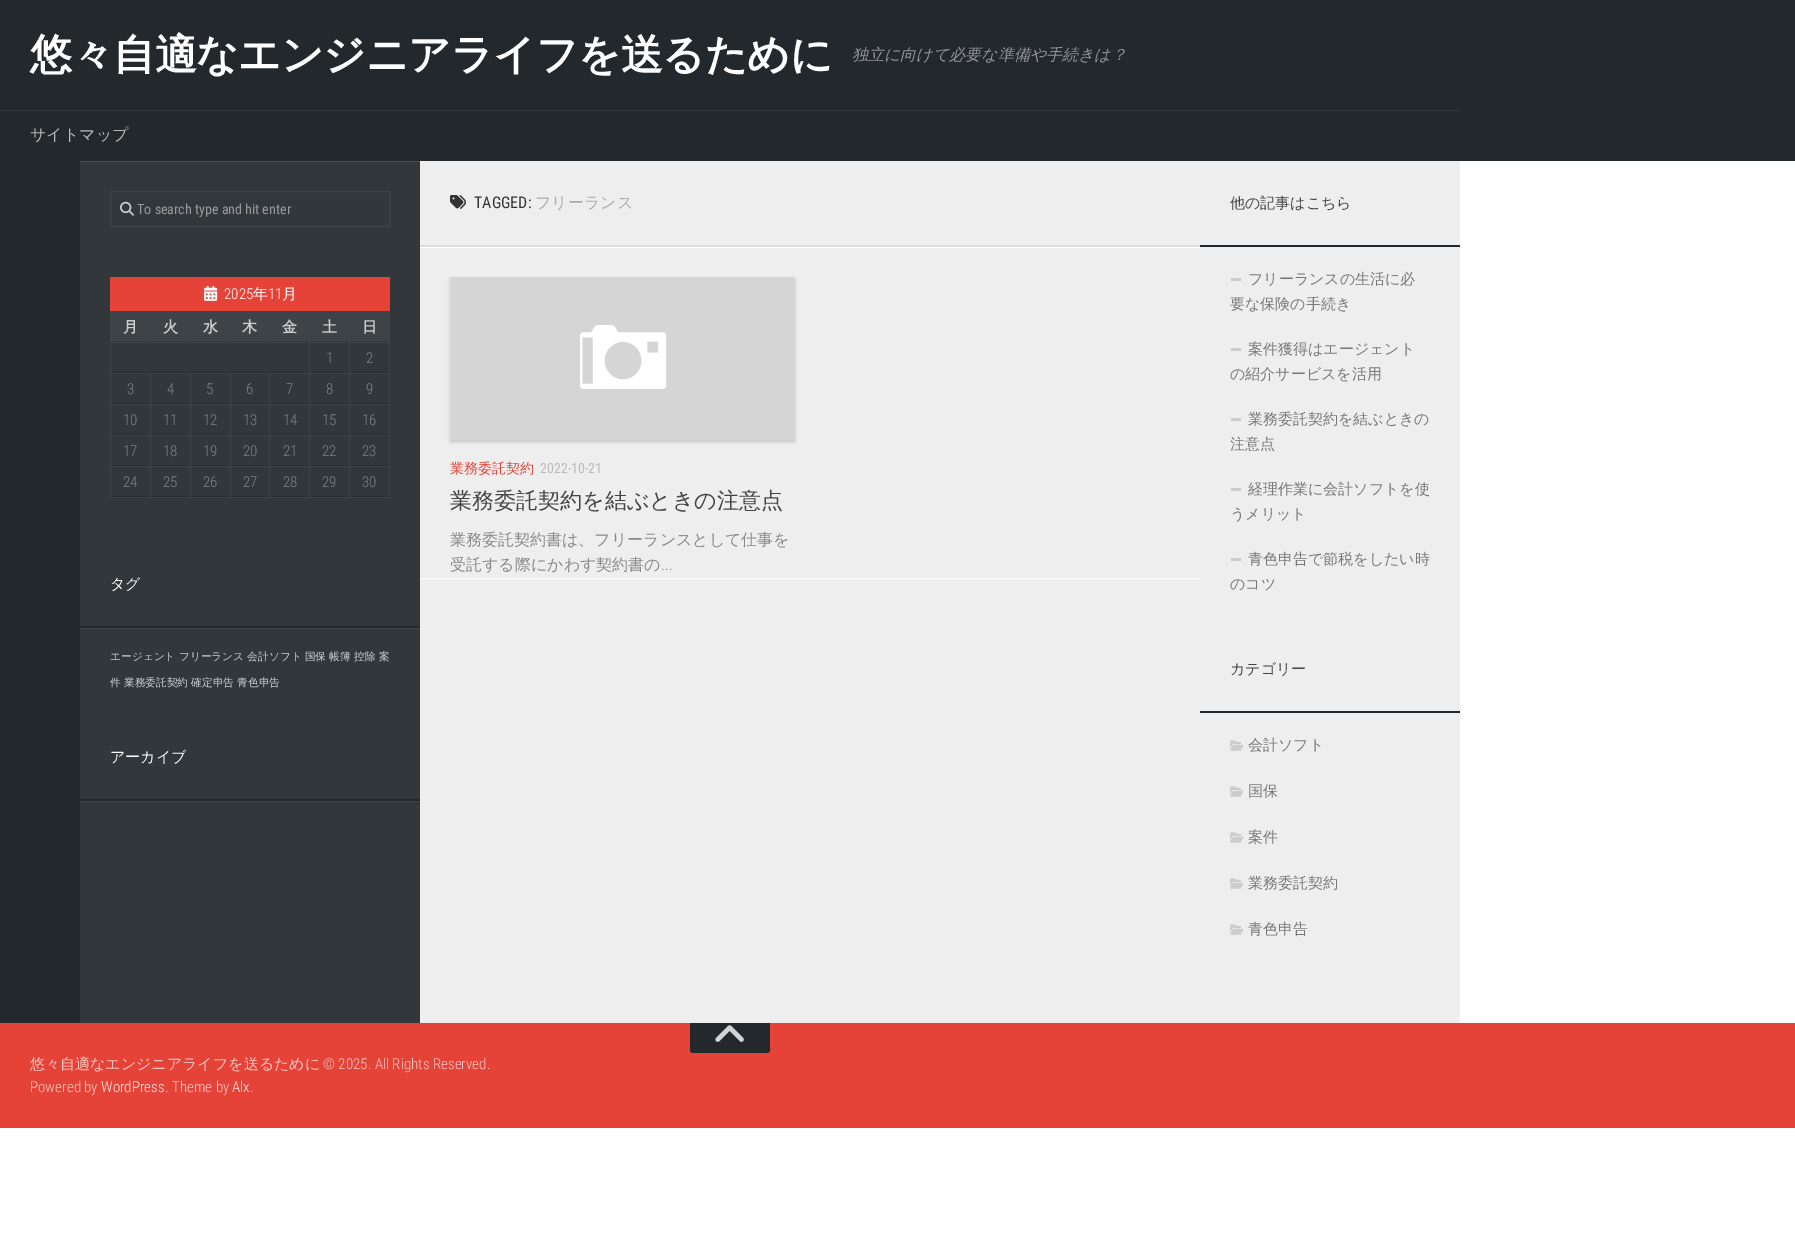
%!PS
<< /PageSize [1795 1238] /PageUsesTransparency true >> setpagedevice
/rgb { 3 { 255 div 3 1 roll } repeat setrgbcolor } def
/font { [ exch dup neg 0 0 3 -1 roll 0 0 ] selectfont } def
/alpha { dup .setfillconstantalpha .setstrokeconstantalpha } def
/roundrect { 5 dict begin { /r /h /w /y /x } { exch def } forall
  x r add y moveto x w add y 2 copy h add r arct x w add y h add x 1 index r arct
  x y h add x y r arct x y 2 copy exch w add exch r arct closepath end } def
/shadow { 12 dict begin { /a /b /q /h /w /y /x } { exch def } forall gsave /was 0 def
  9 -2 -9 { dup b mul 4 div /e exch def 1 sub .425 mul 2.718 exch exp 1 add a .99 .min exch div /now exch def
    1 1 now sub 1 was sub div sub alpha /was now def
    w h .min e 2 mul add 0 gt { x e sub y e sub w e 2 mul add h e 2 mul add
      q e add b .6 mul add w h .min 2 div e add .min 0 .max roundrect fill } if } for grestore end } def
/picture { 5 dict begin { /h /w /y /x /name } { exch def } forall
  gsave x y translate w h scale
  w h 8 [w 0 0 h 0 0] name (r) file false 3 colorimage grestore end } def
0 .pushpdf14devicefilter
0 1238 translate 1 -1 scale
4 setmiterlimit
255 255 255 rgb
0 0 1795 1238 rectfill
[
  [0 0 1795 161 35 40 45]
  [0 110 1460 1 50 55 60]
  [420 161 1040 862 238 238 238]
  [0 161 80 862 35 40 45]
  [80 162 340 861 50 55 60]
  [80 161 340 1 71 75 80]
] { aload pop rgb rectfill } forall
62 67 71 rgb
110.5 191.5 279 35 rectstroke
(img/1.rgb) 120 201 14 15 picture
230 67 56 rgb
110 277 280 34 rectfill
(img/2.rgb) 204 285 14 16 picture
[
  [111 312 279 31 62 67 71]
  [112 341 37 1 50 54 57]
  [110 311 280 1 62 67 71]
  [349 373 41 1 62 67 71]
  [349 404 41 1 62 67 71]
  [349 435 41 1 62 67 71]
  [349 466 41 1 62 67 71]
  [389 466 1 32 62 67 71]
  [349 497 41 1 62 67 71]
  [349 466 1 32 62 67 71]
  [309 466 41 1 62 67 71]
  [349 435 1 32 62 67 71]
  [309 435 41 1 62 67 71]
  [349 404 1 32 62 67 71]
  [309 404 41 1 62 67 71]
  [349 373 1 32 62 67 71]
  [309 373 41 1 62 67 71]
  [309 497 41 1 62 67 71]
  [309 466 1 32 62 67 71]
  [269 466 41 1 62 67 71]
  [309 435 1 32 62 67 71]
  [269 435 41 1 62 67 71]
  [309 404 1 32 62 67 71]
  [269 404 41 1 62 67 71]
  [309 373 1 32 62 67 71]
  [269 373 41 1 62 67 71]
  [269 497 41 1 62 67 71]
  [269 466 1 32 62 67 71]
  [230 466 40 1 62 67 71]
  [269 435 1 32 62 67 71]
  [230 435 40 1 62 67 71]
  [269 404 1 32 62 67 71]
  [230 404 40 1 62 67 71]
  [269 373 1 32 62 67 71]
  [230 373 40 1 62 67 71]
  [230 497 40 1 62 67 71]
  [230 466 1 32 62 67 71]
  [190 466 41 1 62 67 71]
  [230 435 1 32 62 67 71]
  [190 435 41 1 62 67 71]
  [230 404 1 32 62 67 71]
  [190 404 41 1 62 67 71]
  [230 373 1 32 62 67 71]
  [190 373 41 1 62 67 71]
  [190 497 41 1 62 67 71]
  [190 466 1 32 62 67 71]
  [150 466 41 1 62 67 71]
  [190 435 1 32 62 67 71]
  [150 435 41 1 62 67 71]
  [190 404 1 32 62 67 71]
  [150 404 41 1 62 67 71]
  [190 373 1 32 62 67 71]
  [150 373 41 1 62 67 71]
  [150 497 41 1 62 67 71]
  [150 466 1 32 62 67 71]
  [110 466 41 1 62 67 71]
  [150 435 1 32 62 67 71]
  [110 435 41 1 62 67 71]
  [150 404 1 32 62 67 71]
  [110 404 41 1 62 67 71]
  [150 373 1 32 62 67 71]
  [110 373 41 1 62 67 71]
  [110 497 41 1 62 67 71]
  [110 466 1 32 62 67 71]
  [110 435 1 32 62 67 71]
  [110 404 1 32 62 67 71]
  [110 373 1 32 62 67 71]
  [110 342 1 32 62 67 71]
  [110 311 1 32 62 67 71]
  [151 341 38 1 50 54 57]
  [191 341 38 1 50 54 57]
  [231 341 38 1 50 54 57]
  [271 341 38 1 50 54 57]
  [311 341 38 1 50 54 57]
  [351 341 38 1 50 54 57]
  [112 372 197 1 40 44 48]
  [311 372 38 1 40 44 48]
  [309 342 1 32 62 67 71]
  [351 372 38 1 40 44 48]
  [349 342 1 32 62 67 71]
  [112 403 37 1 40 44 48]
  [151 403 38 1 40 44 48]
  [191 403 38 1 40 44 48]
  [231 403 38 1 40 44 48]
  [271 403 38 1 40 44 48]
  [311 403 38 1 40 44 48]
  [351 403 38 1 40 44 48]
  [389 435 1 32 62 67 71]
  [389 404 1 32 62 67 71]
  [389 342 1 63 62 67 71]
  [112 434 37 1 40 44 48]
  [151 434 38 1 40 44 48]
  [191 434 38 1 40 44 48]
  [231 434 38 1 40 44 48]
  [271 434 38 1 40 44 48]
  [311 434 38 1 40 44 48]
  [351 434 38 1 40 44 48]
  [112 465 37 1 40 44 48]
  [151 465 38 1 40 44 48]
  [191 465 38 1 40 44 48]
  [231 465 38 1 40 44 48]
  [271 465 38 1 40 44 48]
  [311 465 38 1 40 44 48]
  [351 465 38 1 40 44 48]
  [112 496 37 1 40 44 48]
  [151 496 38 1 40 44 48]
  [191 496 38 1 40 44 48]
  [231 496 38 1 40 44 48]
  [271 496 38 1 40 44 48]
  [311 496 38 1 40 44 48]
  [351 496 38 1 40 44 48]
  [80 628 340 1 62 67 72]
  [80 626 340 2 35 40 45]
  [80 801 340 1 62 67 72]
  [80 799 340 2 35 40 45]
  [420 247 780 1 255 255 255]
  [420 245 780 2 221 221 221]
] { aload pop rgb rectfill } forall
(img/3.rgb) 450 195 16 14 picture
255 255 255 rgb
420 578 780 1 rectfill
0 0 0 rgb
450 279 345 163 0 1.5 0.15 shadow
(img/4.rgb) 450 277 345 163 picture
[
  [1200 245 260 2 35 40 45]
  [1231 278 10 3 204 204 204]
  [1231 348 10 3 204 204 204]
  [1231 418 10 3 204 204 204]
  [1231 488 10 3 204 204 204]
  [1231 558 10 3 204 204 204]
  [1200 711 260 2 35 40 45]
] { aload pop rgb rectfill } forall
(img/5.rgb) 1230 740 14 11 picture
(img/5.rgb) 1230 786 14 11 picture
(img/5.rgb) 1230 832 14 11 picture
(img/5.rgb) 1230 878 14 11 picture
(img/5.rgb) 1230 924 14 11 picture
230 67 56 rgb
0 1023 1795 105 rectfill
35 40 45 rgb
690 1023 moveto 770 1023 lineto 770 1050 lineto 770 1051.5 768.5 1053 767 1053 curveto 693 1053 lineto 691.5 1053 690 1051.5 690 1050 curveto closepath fill
(img/6.rgb) 715 1025 29 17 picture
/WenQuanYiZenHei-Bold 42 font
255 255 255 rgb
30 69 moveto -0.5 0 (悠々自適なエンジニアライフを送るために) ashow
/WenQuanYiZenHei-MediumItalic 16 font
145 148 150 rgb
852 60 moveto (独立に向けて必要な準備や手続きは？) show
/WenQuanYiZenHei-Medium 16 font
187 187 187 rgb
30 140 moveto (サイトマップ) show
/RobotoCondensed-Regular 14 font
153 153 153 rgb
137 214 moveto (To search type and hit enter) show
/RobotoCondensed-Light 15 font
255 255 255 rgb
224 299 moveto (2025) show
/WenQuanYiZenHei-Medium 15 font
253 299 moveto (年) show
/RobotoCondensed-Light 15 font
268 299 moveto (11) show
/WenQuanYiZenHei-Medium 15 font
282 299 moveto (月) show
/WenQuanYiZenHei-Bold 15 font
204 204 204 rgb
[
  [(月) 123 332]
  [(火) 163 332]
  [(水) 203 332]
  [(木) 242 332]
  [(金) 282 332]
  [(土) 322 332]
  [(日) 362 332]
] { aload pop moveto show } forall
/RobotoCondensed-Light 15 font
121 130 139 rgb
[
  [(1) 326 363]
  [(2) 366 363]
  [(3) 127 394]
  [(4) 167 394]
  [(5) 206 394]
  [(6) 246 394]
  [(7) 286 394]
  [(8) 326 394]
  [(9) 366 394]
  [(10) 123 425]
  [(11) 163 425]
  [(12) 203 425]
  [(13) 243 425]
  [(14) 283 425]
  [(15) 322 425]
  [(16) 362 425]
  [(17) 123 456]
  [(18) 163 456]
  [(19) 203 456]
  [(20) 243 456]
  [(21) 283 456]
  [(22) 322 456]
  [(23) 362 456]
  [(24) 123 487]
  [(25) 163 487]
  [(26) 203 487]
  [(27) 243 487]
  [(28) 283 487]
  [(29) 322 487]
  [(30) 362 487]
] { aload pop moveto show } forall
/WenQuanYiZenHei-Medium 15 font
255 255 255 rgb
110 589 moveto (タグ) show
/WenQuanYiZenHei-Medium 10.7 font
204 210 216 rgb
110 660 moveto (エージェント フリーランス 会計ソフト 国保 帳簿 控除 案) show
110 686 moveto (件 業務委託契約 確定申告 青色申告) show
/WenQuanYiZenHei-Medium 15 font
255 255 255 rgb
110 762 moveto (アーカイブ) show
/RobotoCondensed-Regular 16 font
51 51 51 rgb
474 208 moveto (TAGGED:) show
/WenQuanYiZenHei-Medium 16 font
170 170 170 rgb
535 208 moveto (フリーランス) show
/WenQuanYiZenHei-Medium 14 font
230 67 56 rgb
450 473 moveto (業務委託契約) show
/RobotoCondensed-Regular 14 font
187 187 187 rgb
540 473 moveto (2022-10-21) show
/WenQuanYiZenHei-Medium 22 font
68 68 68 rgb
450 508 moveto (業務委託契約を結ぶときの注意点) show
/WenQuanYiZenHei-Medium 16 font
136 136 136 rgb
450 545 moveto (業務委託契約書は、フリーランスとして仕事を) show
450 570 moveto (受託する際にかわす契約書の) show
/RobotoCondensed-Light 16 font
661 570 moveto (...) show
/WenQuanYiZenHei-Medium 15 font
68 68 68 rgb
1230 208 moveto (他の記事はこちら) show
119 119 119 rgb
[
  [(フリーランスの生活に必) 1248 284]
  [(要な保険の手続き) 1230 309]
  [(案件獲得はエージェント) 1248 354]
  [(の紹介サービスを活用) 1230 379]
  [(業務委託契約を結ぶときの) 1248 424]
  [(注意点) 1230 449]
  [(経理作業に会計ソフトを使) 1248 494]
  [(うメリット) 1230 519]
  [(青色申告で節税をしたい時) 1248 564]
  [(のコツ) 1230 589]
] { aload pop moveto show } forall
68 68 68 rgb
1230 674 moveto (カテゴリー) show
119 119 119 rgb
[
  [(会計ソフト) 1248 750]
  [(国保) 1248 796]
  [(案件) 1248 842]
  [(業務委託契約) 1248 888]
  [(青色申告) 1248 934]
] { aload pop moveto show } forall
248 199 195 rgb
30 1069 moveto (悠々自適なエンジニアライフを送るために) show
/RobotoCondensed-Light 15 font
323 1069 moveto (© 2025. All Rights Reserved.) show
30 1092 moveto (Powered by) show
253 236 235 rgb
101 1092 moveto (WordPress) show
248 199 195 rgb
165 1092 moveto (. Theme by) show
253 236 235 rgb
232 1092 moveto (Alx) show
248 199 195 rgb
250 1092 moveto (.) show
.poppdf14devicefilter showpage
